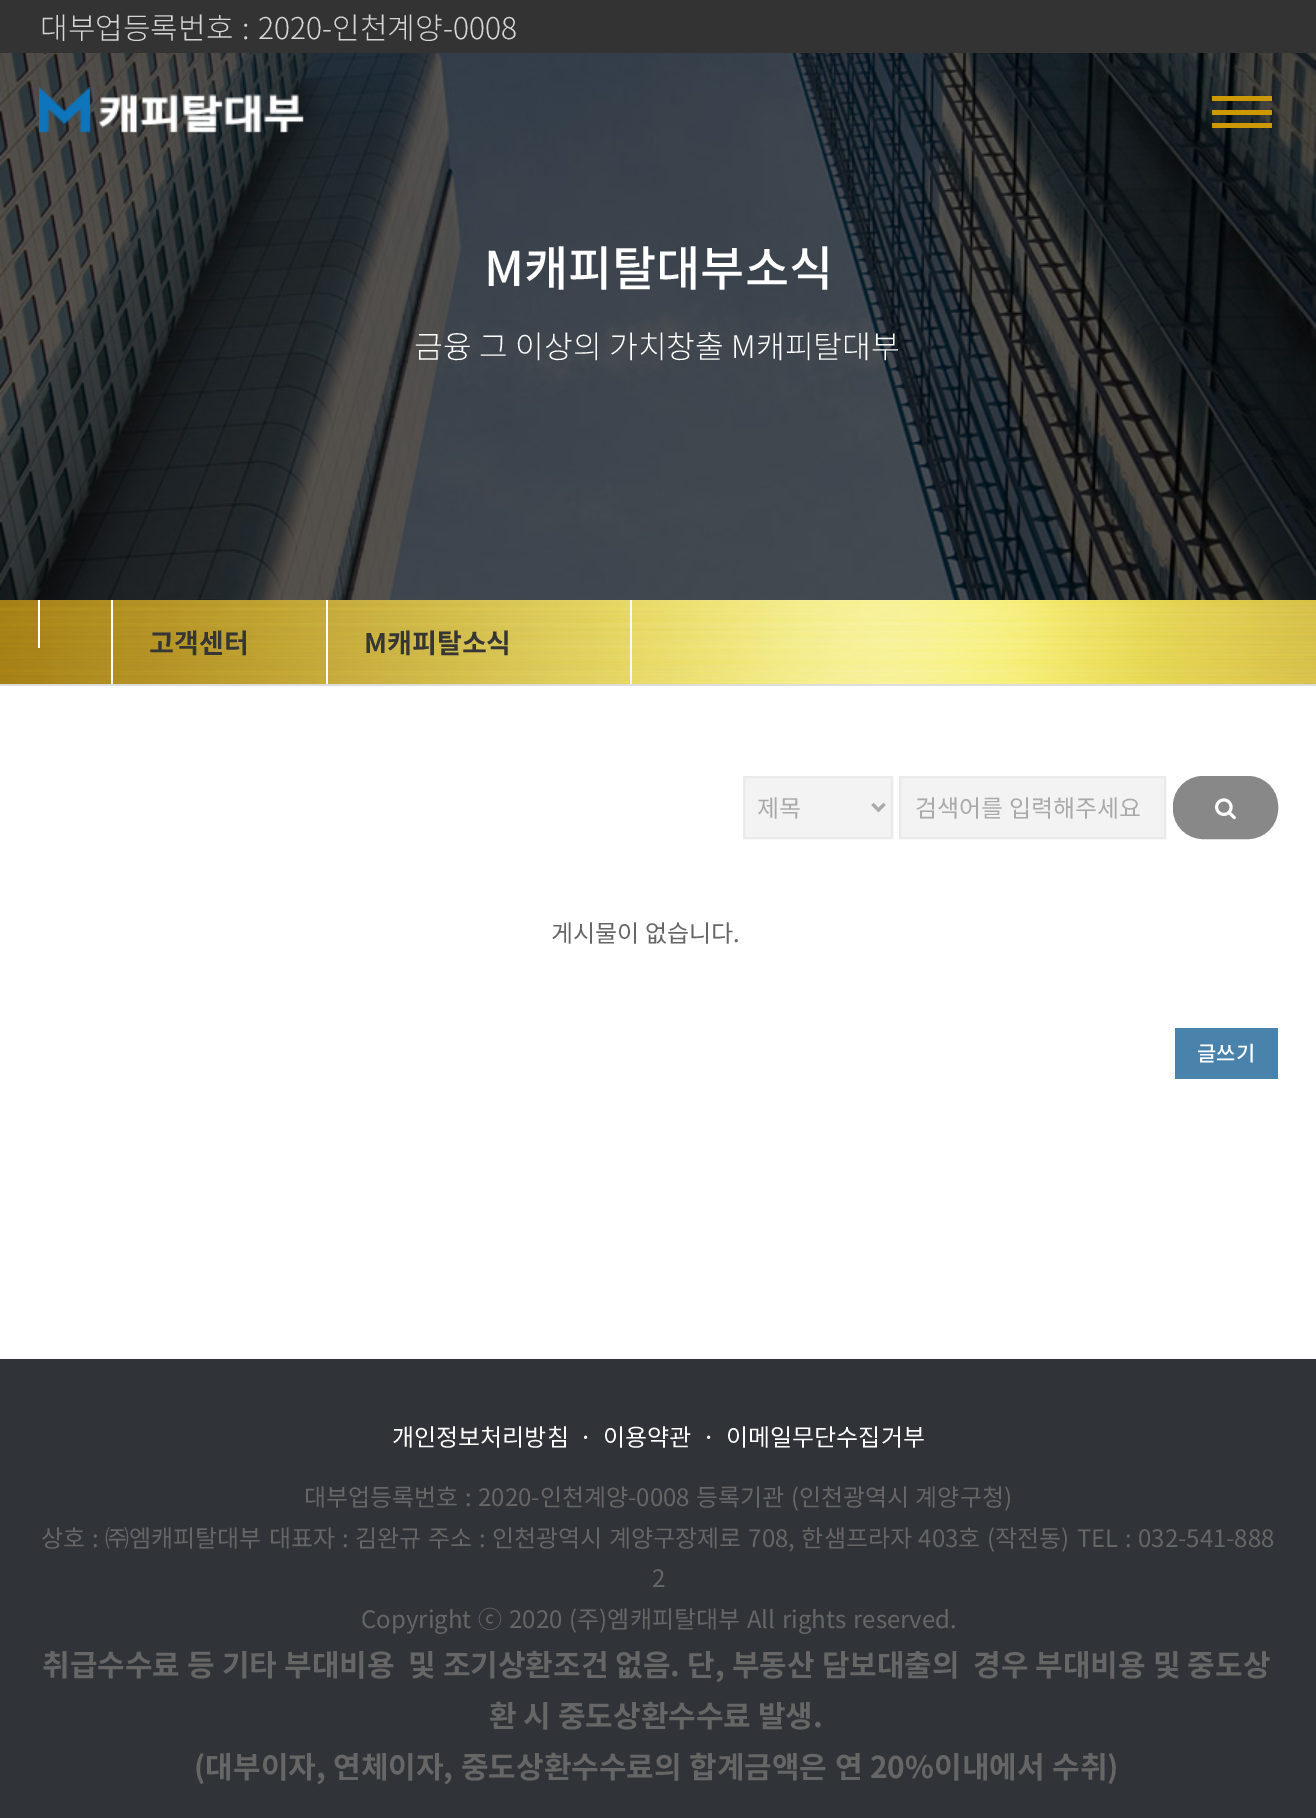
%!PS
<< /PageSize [1316 1818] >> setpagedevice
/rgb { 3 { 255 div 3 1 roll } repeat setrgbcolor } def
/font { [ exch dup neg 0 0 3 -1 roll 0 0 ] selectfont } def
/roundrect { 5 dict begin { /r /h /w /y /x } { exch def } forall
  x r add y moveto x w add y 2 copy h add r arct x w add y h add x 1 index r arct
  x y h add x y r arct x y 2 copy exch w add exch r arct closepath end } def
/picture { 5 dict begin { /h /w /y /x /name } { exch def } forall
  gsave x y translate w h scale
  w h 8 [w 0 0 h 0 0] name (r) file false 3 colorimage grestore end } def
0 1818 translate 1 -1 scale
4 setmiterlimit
255 255 255 rgb
0 0 1316 1818 rectfill
51 51 51 rgb
0 0 1316 53 rectfill
(img/2.rgb) 0 53 1316 547 picture
(img/1.rgb) 39 87 265 46 picture
[
  [1212 96 60 5 204 153 0]
  [1212 110 60 5 204 153 0]
  [1212 123 60 5 204 153 0]
] { aload pop rgb rectfill } forall
(img/3.rgb) 0 600 1316 84 picture
[
  [0 684 1316 2 221 221 221]
  [38 600 2 48 255 255 255]
  [326 600 2 84 255 255 255]
  [111 600 2 84 255 255 255]
  [630 600 2 84 255 255 255]
] { aload pop rgb rectfill } forall
243 243 243 rgb
744 777 moveto 892 777 lineto 892 838 lineto 744 838 lineto closepath gsave fill grestore
234 234 234 rgb
2 setlinewidth
stroke
170 170 170 rgb
3 setlinewidth
872.5 804 moveto 878.5 810 lineto 884.5 804 lineto stroke
243 243 243 rgb
900 777 moveto 1165 777 lineto 1165 838 lineto 900 838 lineto closepath gsave fill grestore
234 234 234 rgb
2 setlinewidth
stroke
136 136 136 rgb
1174 777 103 61 29 roundrect gsave fill grestore
stroke
(img/4.rgb) 1215 798 21 22 picture
73 130 170 rgb
1175 1028 103 51 rectfill
48 51 56 rgb
0 1359 1316 459 rectfill
/NotoSansKR-Light 30 font
214 214 214 rgb
40 39 moveto 2 0 32 (대부업등록번호 : 2020-인천계양-0008) widthshow
/NotoSansKR-Medium 48 font
255 255 255 rgb
484 286 moveto (M캐피탈대부소식) show
/NotoSansKR-Light 31.25 font
414 358 moveto 0.5 0 32 (금융 그 이상의 가치창출 M캐피탈대부) widthshow
/NotoSansKR-Bold 27 font
54 54 54 rgb
149 653 moveto (고객센터) show
364 653 moveto (M캐피탈소식) show
/NotoSansKR-Regular 24 font
170 170 170 rgb
757 817 moveto (제목) show
915 817 moveto (검색어를 입력해주세요) show
102 102 102 rgb
551 942 moveto (게시물이 없습니다.) show
/NotoSansKR-Medium 21 font
255 255 255 rgb
1197 1061 moveto (글쓰기) show
/NotoSansKR-Regular 24 font
[
  [(개인정보처리방침  ·) 392 1446]
  [(이용약관  ·) 603 1446]
  [(이메일무단수집거부) 726 1446]
] { aload pop moveto show } forall
102 102 102 rgb
304 1506 moveto 1 0 32 (대부업등록번호 : 2020-인천계양-0008 등록기관 \(인천광역시 계양구청\)) widthshow
41 1547 moveto 1 0 32 (상호 : ㈜엠캐피탈대부) widthshow
269 1547 moveto 1 0 32 (대표자 : 김완규) widthshow
428 1547 moveto 1.25 0 32 (주소 : 인천광역시 계양구장제로 708, 한샘프라자 403호 \(작전동\)) widthshow
1077 1547 moveto 1 0 32 (TEL : 032-541-888) widthshow
652 1587 moveto (2) show
361 1628 moveto 1.5 0 32 (Copyright ⓒ 2020 \(주\)엠캐피탈대부 All rights reserved.) widthshow
/NotoSansKR-Bold 30 font
42 1676 moveto 0.25 0 32 (취급수수료 등 기타 부대비용) widthshow
408 1676 moveto 0.25 0 32 (및 조기상환조건 없음. 단, 부동산 담보대출의) widthshow
973 1676 moveto 0.25 0 32 (경우 부대비용 및 중도상) widthshow
489 1727 moveto (환 시 중도상환수수료 발생.) show
194 1778 moveto 0.75 0 32 (\(대부이자, 연체이자, 중도상환수수료의 합계금액은 연 20%이내에서 수취\)) widthshow
showpage
